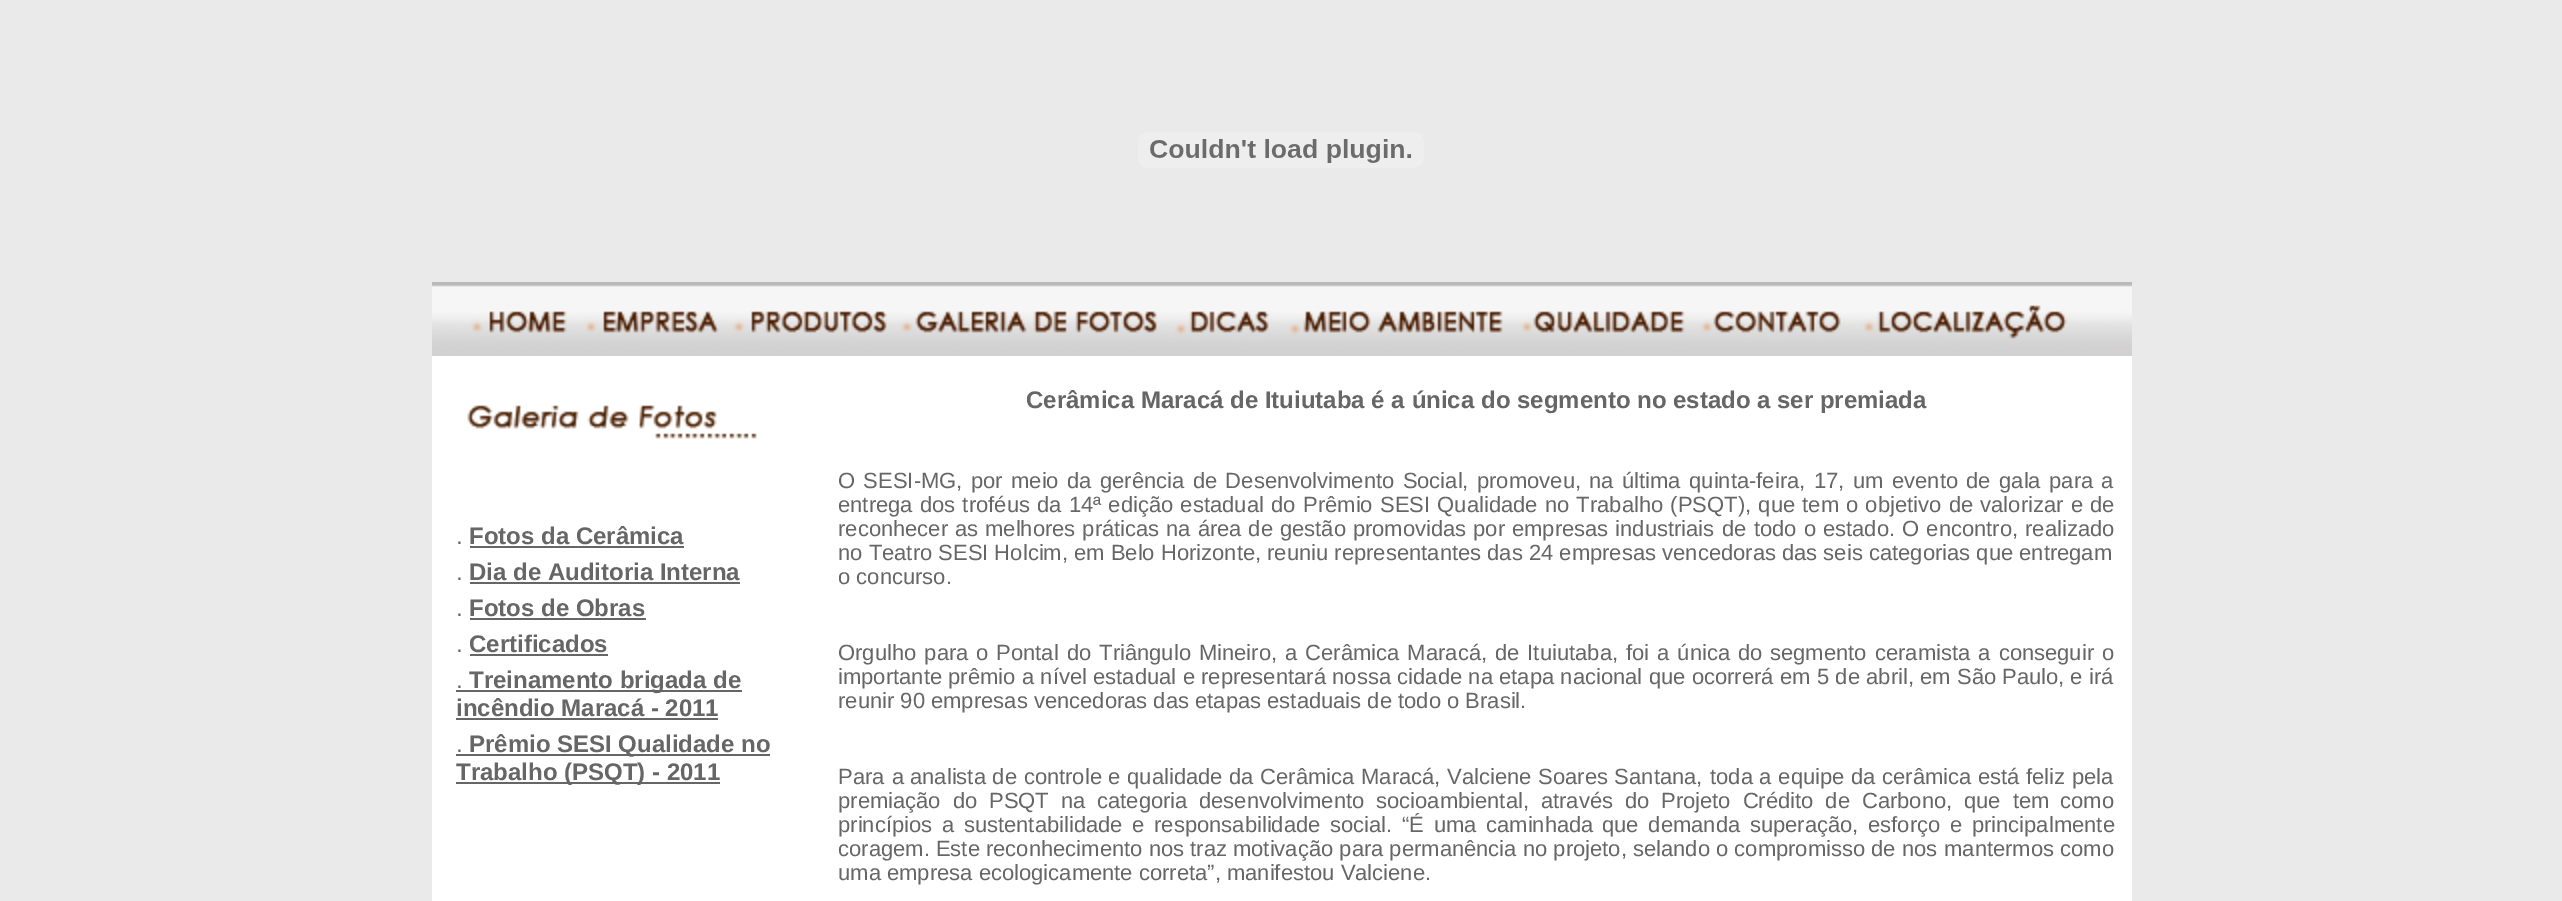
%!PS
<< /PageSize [2562 901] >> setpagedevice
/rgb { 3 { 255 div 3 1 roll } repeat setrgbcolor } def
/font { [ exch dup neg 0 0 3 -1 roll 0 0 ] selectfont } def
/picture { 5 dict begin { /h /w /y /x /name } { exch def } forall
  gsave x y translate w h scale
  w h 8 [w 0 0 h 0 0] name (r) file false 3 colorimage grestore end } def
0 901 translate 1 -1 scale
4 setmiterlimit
234 234 234 rgb
0 0 2562 901 rectfill
(img/1.rgb) 1138 132 286 36 picture
(img/2.rgb) 432 282 146 74 picture
(img/3.rgb) 578 282 146 74 picture
(img/4.rgb) 724 282 168 74 picture
(img/5.rgb) 892 282 276 74 picture
(img/6.rgb) 1168 282 108 74 picture
(img/7.rgb) 1276 282 234 74 picture
(img/8.rgb) 1510 282 182 74 picture
(img/9.rgb) 1692 282 156 74 picture
(img/10.rgb) 1848 282 284 74 picture
(img/11.rgb) 432 356 390 545 picture
[
  [470 546 214 2 102 102 102]
  [470 582 270 2 102 102 102]
  [470 618 176 2 102 102 102]
  [470 654 138 2 102 102 102]
  [456 690 286 2 102 102 102]
  [456 718 262 2 102 102 102]
  [456 754 314 2 102 102 102]
  [456 782 264 2 102 102 102]
  [822 356 1310 545 255 255 255]
] { aload pop rgb rectfill } forall
/LiberationSans-Regular 24 font
102 102 102 rgb
456 544 moveto (.) show
/LiberationSans-Bold 24 font
469 544 moveto (Fotos da Cerâmica) show
/LiberationSans-Regular 24 font
456 580 moveto (.) show
/LiberationSans-Bold 24 font
469 580 moveto (Dia de Auditoria Interna) show
/LiberationSans-Regular 24 font
456 616 moveto (.) show
/LiberationSans-Bold 24 font
469 616 moveto (Fotos de Obras) show
/LiberationSans-Regular 24 font
456 652 moveto (.) show
/LiberationSans-Bold 24 font
469 652 moveto (Certificados) show
/LiberationSans-Regular 24 font
456 688 moveto (.) show
/LiberationSans-Bold 24 font
469 688 moveto (Treinamento brigada de) show
456 716 moveto (incêndio Maracá - 2011) show
/LiberationSans-Regular 24 font
456 752 moveto (.) show
/LiberationSans-Bold 24 font
[
  [(Prêmio SESI Qualidade no) 469 752]
  [(Trabalho \(PSQT\) - 2011) 456 780]
  [(Cerâmica Maracá de Ituiutaba é a única do segmento no estado a ser premiada) 1026 408]
] { aload pop moveto show } forall
/LiberationSans-Regular 22 font
838 488 moveto 2.25 0 32 (O SESI-MG, por) widthshow
1011 488 moveto 2.25 0 32 (meio da gerência de Desenvolvimento Social, promoveu, na última quinta-feira,) widthshow
1814 488 moveto 2.25 0 32 (17, um evento de gala para a) widthshow
838 512 moveto 1.1 0 32 (entrega dos troféus da 14ª edição estadual do) widthshow
1303 512 moveto 1.1 0 32 (Prêmio SESI Qualidade no Trabalho \(PSQT\), que tem o objetivo de valorizar e de) widthshow
838 536 moveto 0.75 0 32 (reconhecer as melhores práticas na área de gestão promovidas por empresas industriais) widthshow
1722 536 moveto 1 0 32 (de todo o estado. O encontro, realizado) widthshow
838 560 moveto (no Teatro SESI Holcim, em Belo Horizonte, reuniu representantes das 24 empresas vencedoras das seis categorias que entregam) show
838 584 moveto (o concurso.) show
838 660 moveto 1.9 0 32 (Orgulho para) widthshow
976 660 moveto 1.9 0 32 (o Pontal do Triângulo Mineiro, a Cerâmica Maracá, de Ituiutaba, foi a única do) widthshow
1770 660 moveto 2 0 32 (segmento ceramista a conseguir o) widthshow
838 684 moveto 0.2 0 32 (importante prêmio a nível estadual e representará nossa cidade na etapa nacional que ocorrerá em 5 de abril, em São) widthshow
2002 684 moveto (Paulo, e irá) show
838 708 moveto (reunir 90 empresas vencedoras das etapas estaduais de todo o Brasil.) show
838 784 moveto 1 0 32 (Para a) widthshow
910 784 moveto 0.5 0 32 (analista de controle e qualidade da Cerâmica Maracá, Valciene Soares Santana,) widthshow
1710 784 moveto 0.5 0 32 (toda a equipe da cerâmica está feliz pela) widthshow
838 808 moveto 5.75 0 32 (premiação do PSQT na categoria) widthshow
1199 808 moveto 5.75 0 32 (desenvolvimento socioambiental, através do Projeto Crédito de Carbono, que tem) widthshow
2060 808 moveto (como) show
838 832 moveto 3.5 0 32 (princípios a sustentabilidade e responsabilidade social. “É uma caminhada) widthshow
1602 832 moveto 3.5 0 32 (que demanda superação, esforço e principalmente) widthshow
[
  [(coragem. Este reconhecimento nos traz motivação para permanência no projeto, selando o compromisso de nos) 838 856]
  [(mantermos como) 1944 856]
  [(uma empresa ecologicamente correta”, manifestou Valciene.) 838 880]
] { aload pop moveto show } forall
showpage
